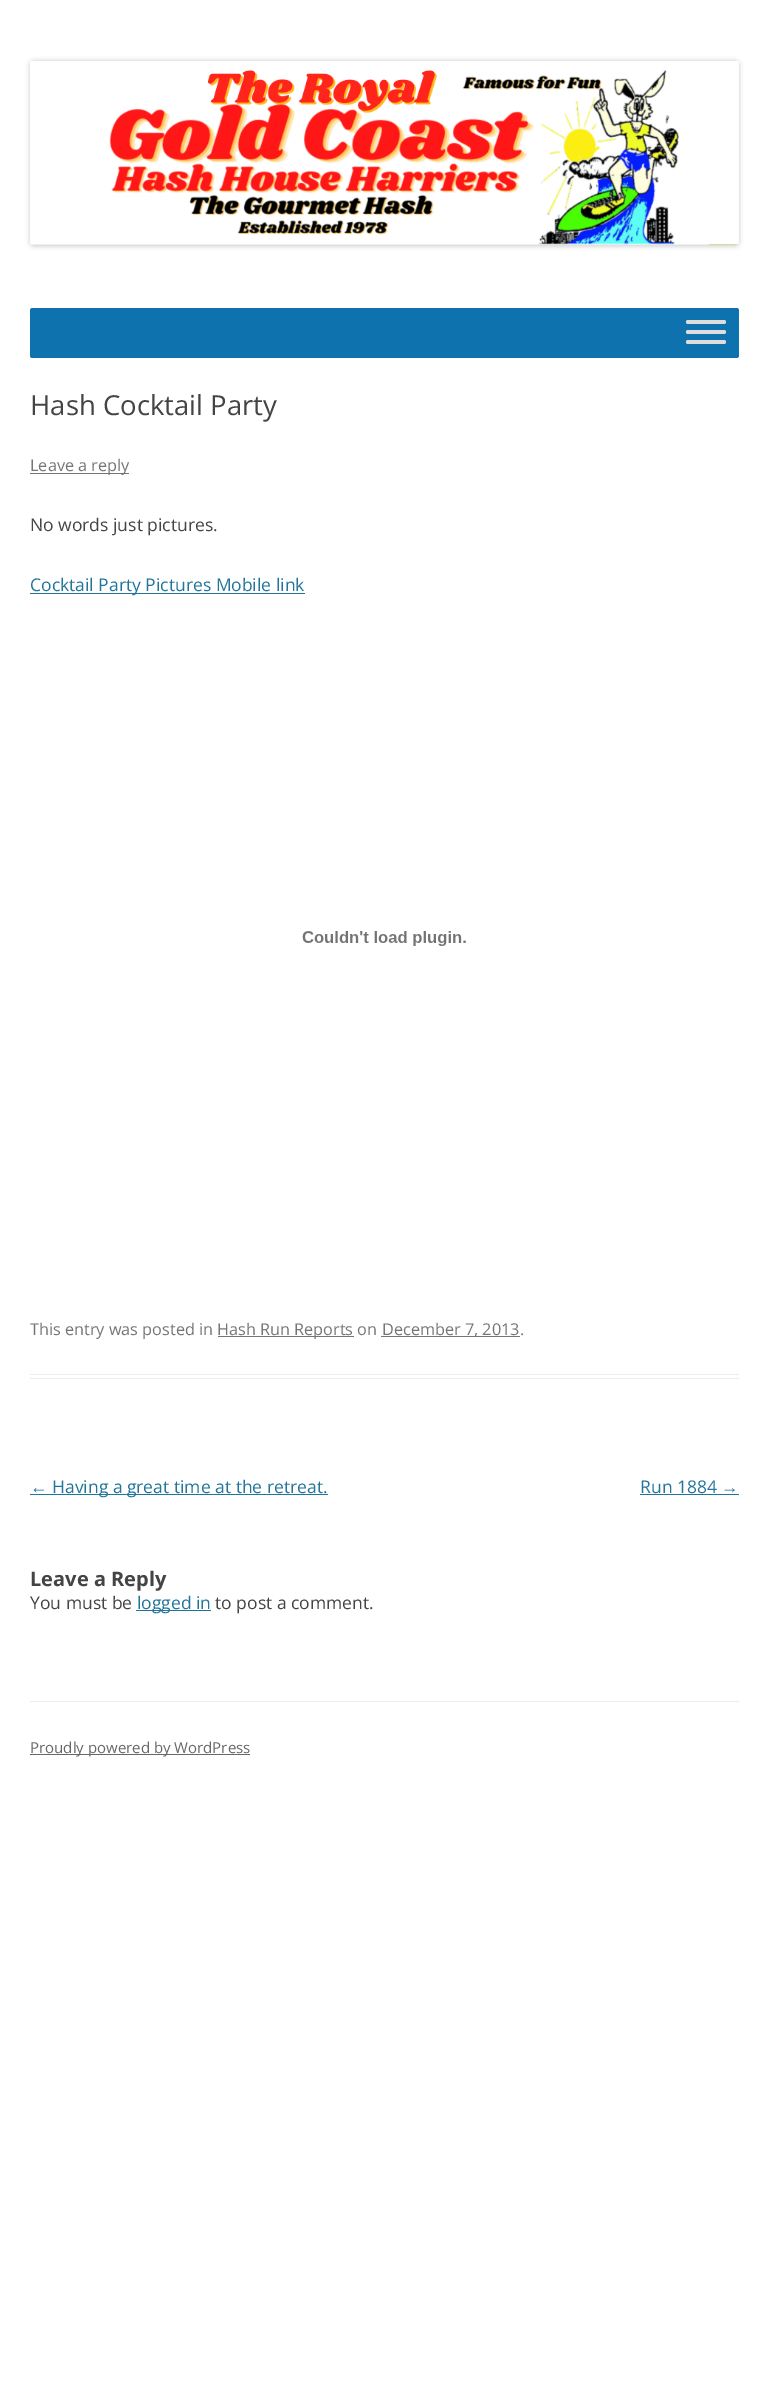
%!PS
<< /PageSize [768 2387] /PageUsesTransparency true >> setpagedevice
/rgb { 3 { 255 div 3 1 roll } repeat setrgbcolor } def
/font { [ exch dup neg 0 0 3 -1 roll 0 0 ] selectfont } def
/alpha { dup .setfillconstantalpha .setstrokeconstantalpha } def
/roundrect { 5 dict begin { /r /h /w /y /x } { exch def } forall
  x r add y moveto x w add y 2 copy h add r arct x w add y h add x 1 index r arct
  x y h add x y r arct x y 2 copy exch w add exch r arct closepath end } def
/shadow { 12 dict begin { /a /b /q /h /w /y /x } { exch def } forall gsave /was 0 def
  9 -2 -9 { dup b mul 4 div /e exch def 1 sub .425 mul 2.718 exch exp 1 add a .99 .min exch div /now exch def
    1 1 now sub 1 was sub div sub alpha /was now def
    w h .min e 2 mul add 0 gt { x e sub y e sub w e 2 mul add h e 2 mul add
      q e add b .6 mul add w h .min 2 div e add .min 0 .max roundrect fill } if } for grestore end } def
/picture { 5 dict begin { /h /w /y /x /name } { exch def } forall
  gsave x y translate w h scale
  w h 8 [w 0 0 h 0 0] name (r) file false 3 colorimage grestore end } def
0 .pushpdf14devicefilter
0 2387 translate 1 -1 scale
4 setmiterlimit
255 255 255 rgb
0 0 768 2387 rectfill
0 0 0 rgb
30 61 709 185 4 2.5 0.2 shadow
(img/1.rgb) 30 61 709 184 picture
13 114 174 rgb
30 308 709 50 2.5 roundrect fill
221 221 221 rgb
686 320 40 4 2 roundrect fill
686 330 40 4 2 roundrect fill
686 340 40 4 2 roundrect fill
[
  [30 1374 709 1 237 237 237]
  [30 1378 709 1 237 237 237]
  [30 473 99 1 117 117 117]
  [30 593 275 1 33 117 155]
] { aload pop rgb rectfill } forall
(img/2.rgb) 302 931 164 15 picture
[
  [218 1336 136 1 117 117 117]
  [381 1336 139 1 117 117 117]
  [30 1494 298 1 33 117 155]
  [640 1494 99 1 33 117 155]
  [136 1610 75 1 33 117 155]
  [30 1701 709 1 237 237 237]
  [30 1754 220 1 104 104 104]
] { aload pop rgb rectfill } forall
/OpenSans-Regular 27.5 font
68 68 68 rgb
30 415 moveto (Hash Cocktail Party) show
/OpenSans-Regular 16.25 font
117 117 117 rgb
30 471 moveto (Leave a reply) show
/OpenSans-Regular 17.5 font
68 68 68 rgb
30 531 moveto (No words just pictures.) show
33 117 155 rgb
30 591 moveto (Cocktail Party Pictures Mobile link) show
/OpenSans-Regular 16.25 font
117 117 117 rgb
[
  [(This entry was posted in) 30 1335]
  [(Hash Run Reports on) 217 1335]
  [(December 7, 2013.) 382 1335]
] { aload pop moveto show } forall
/LiberationSans-Regular 17.5 font
33 117 155 rgb
30 1493 moveto (←) show
/OpenSans-Regular 17.5 font
52 1493 moveto (Having a great time at the retreat.) show
640 1493 moveto (Run 1884) show
/LiberationSans-Regular 17.5 font
721 1493 moveto (→) show
/OpenSans-Bold 20 font
68 68 68 rgb
30 1586 moveto (Leave a Reply) show
/OpenSans-Regular 17.5 font
30 1609 moveto (You must be) show
33 117 155 rgb
137 1609 moveto (logged in) show
68 68 68 rgb
215 1609 moveto (to post a comment.) show
/OpenSans-Regular 15 font
104 104 104 rgb
30 1753 moveto (Proudly powered by WordPress) show
.poppdf14devicefilter showpage
